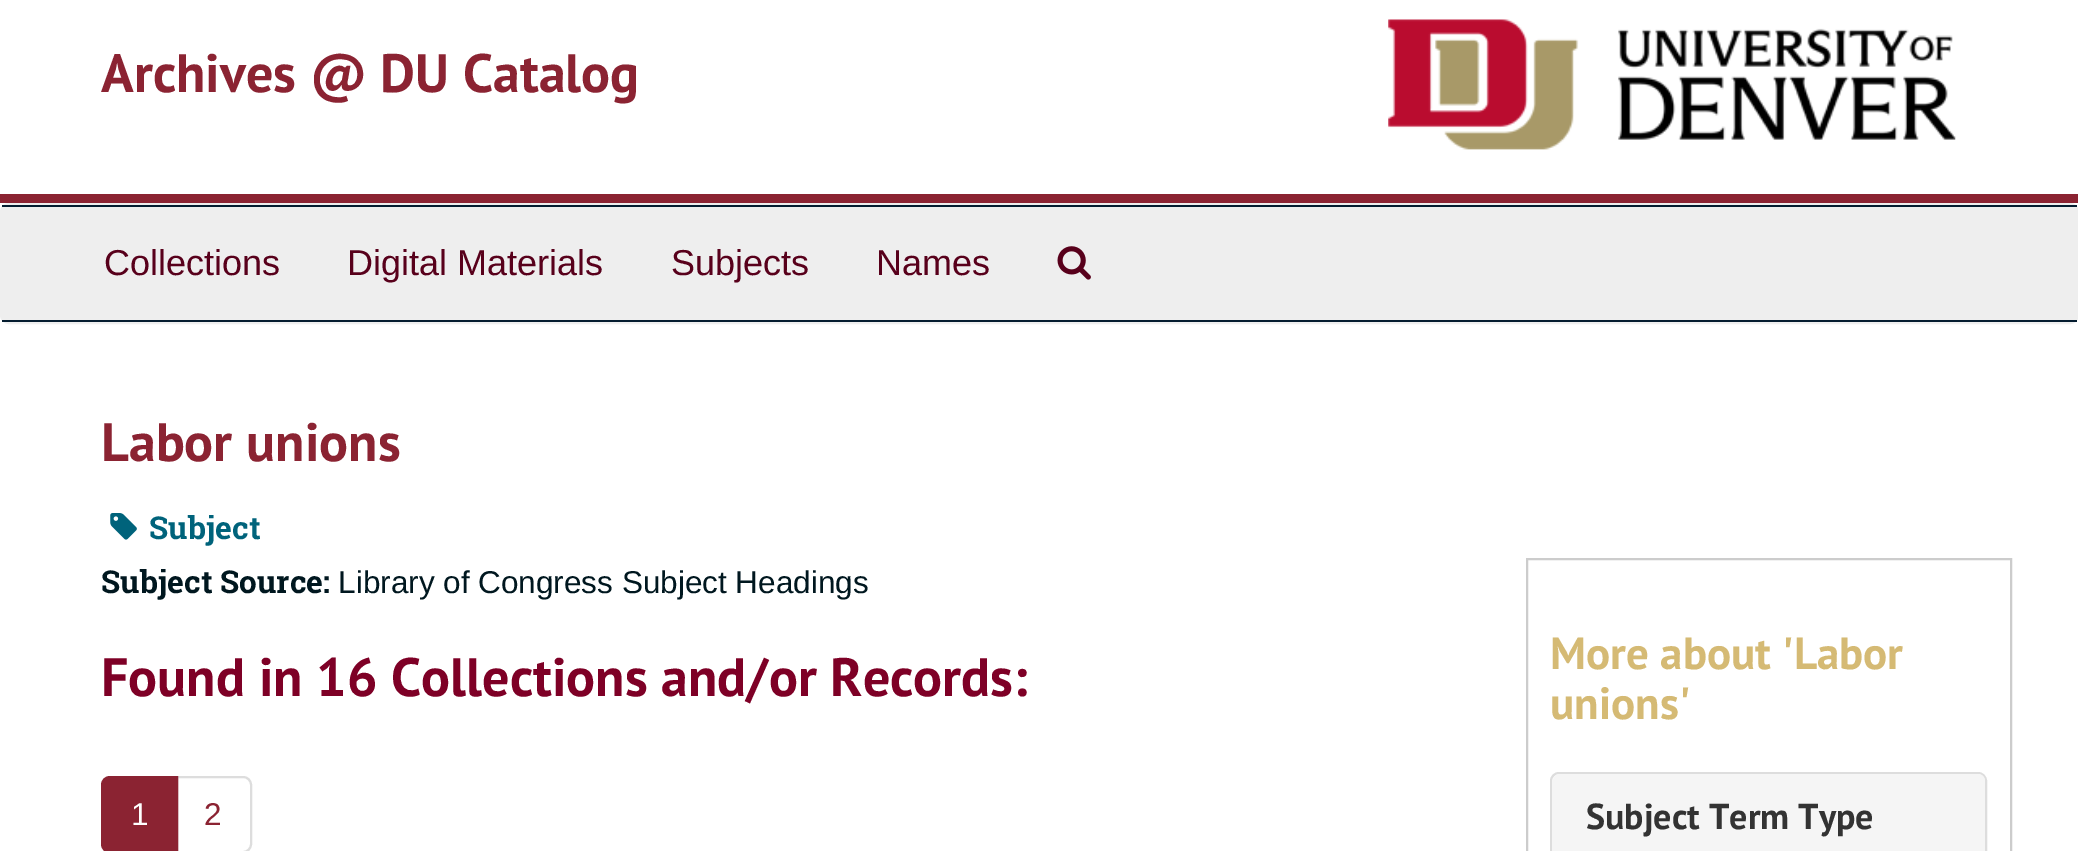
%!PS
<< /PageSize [2078 851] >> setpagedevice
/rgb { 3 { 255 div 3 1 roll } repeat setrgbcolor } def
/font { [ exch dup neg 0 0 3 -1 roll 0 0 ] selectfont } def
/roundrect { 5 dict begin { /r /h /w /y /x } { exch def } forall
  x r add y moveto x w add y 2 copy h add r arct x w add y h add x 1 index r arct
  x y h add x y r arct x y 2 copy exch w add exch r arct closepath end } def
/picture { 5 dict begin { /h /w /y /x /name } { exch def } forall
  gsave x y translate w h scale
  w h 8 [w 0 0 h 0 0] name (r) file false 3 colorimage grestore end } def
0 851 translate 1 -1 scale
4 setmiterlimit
255 255 255 rgb
0 0 2078 851 rectfill
139 35 50 rgb
0 194 2078 9 rectfill
(img/1.rgb) 1388 19 568 131 picture
238 238 238 rgb
2 setlinewidth
1 204 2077 119 8 roundrect stroke
[
  [2 207 2075 113 238 238 238]
  [2 205 2075 2 4 28 47]
  [2 320 2075 2 4 28 47]
] { aload pop rgb rectfill } forall
(img/2.rgb) 1057 246 34 34 picture
(img/3.rgb) 110 513 27 27 picture
221 221 221 rgb
177 777 moveto 243 777 lineto 247.5 777 251 780.5 251 785 curveto 251 844 lineto 251 848.5 247.5 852 243 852 curveto 177 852 lineto closepath stroke
139 35 50 rgb
110 777 moveto 177 777 lineto 177 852 lineto 110 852 lineto 105.5 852 102 848.5 102 844 curveto 102 785 lineto 102 780.5 105.5 777 110 777 curveto closepath gsave fill grestore
stroke
204 204 204 rgb
1527 559 484 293 rectstroke
221 221 221 rgb
1551 773 435 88 8 roundrect stroke
245 245 245 rgb
1560 774 moveto 1978 774 lineto 1982 774 1985 777 1985 781 curveto 1985 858 lineto 1553 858 lineto 1553 781 lineto 1553 777 1556 774 1560 774 curveto closepath fill
/PTSans-Bold 54 font
139 35 50 rgb
101 92 moveto (Archives @ DU Catalog) show
/LiberationSans-Regular 36 font
88 0 27 rgb
[
  [(Collections) 104 275]
  [(Digital Materials) 347 275]
  [(Subjects) 671 275]
  [(Names) 876 275]
] { aload pop moveto show } forall
/PTSans-Bold 54 font
139 35 50 rgb
101 461 moveto (Labor unions) show
/RobotoSlab-Bold 31.5 font
0 99 123 rgb
149 539 moveto (Subject) show
0 23 31 rgb
101 593 moveto (Subject Source:) show
/LiberationSans-Regular 31.5 font
338 593 moveto (Library of Congress Subject Headings) show
/PTSans-Bold 54 font
126 0 38 rgb
101 696 moveto (Found in 16 Collections and/or Records:) show
/LiberationSans-Regular 31.5 font
255 255 255 rgb
131 825 moveto (1) show
139 35 50 rgb
204 825 moveto (2) show
/PTSans-Bold 45 font
213 186 116 rgb
1550 669 moveto (More about 'Labor) show
1550 719 moveto (unions') show
/PTSans-Bold 36 font
51 51 51 rgb
1586 829 moveto (Subject Term Type) show
showpage
